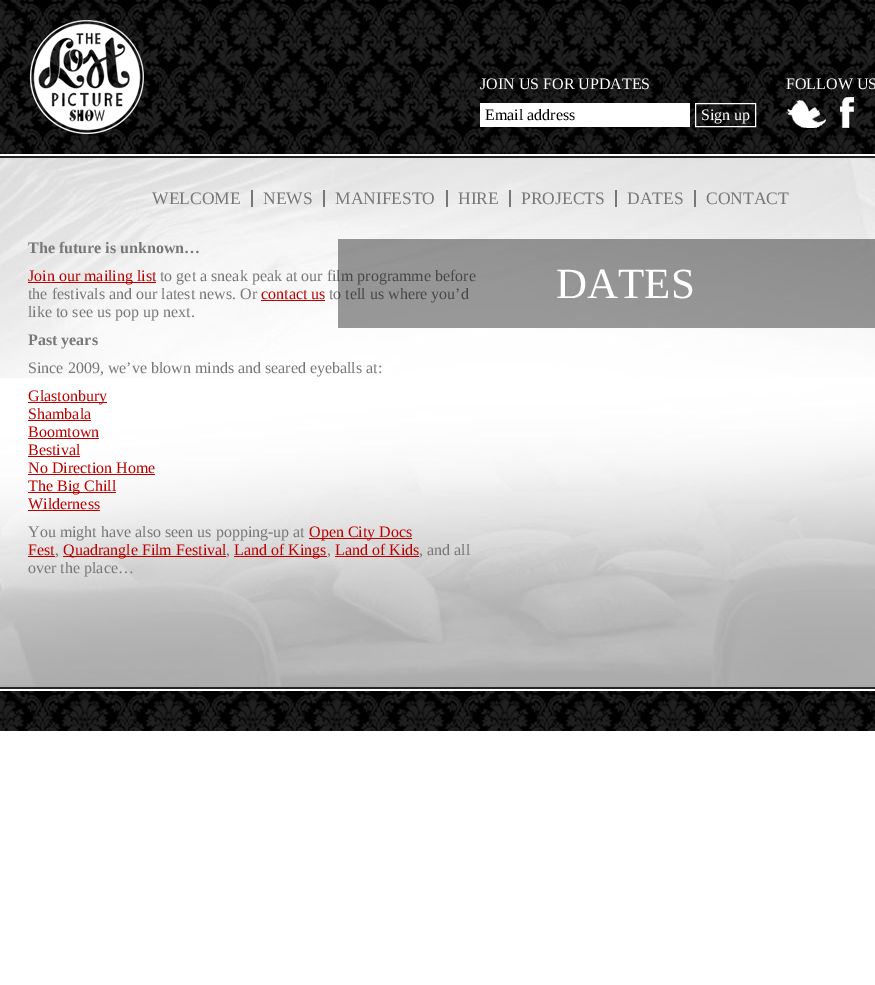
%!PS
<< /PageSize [875 985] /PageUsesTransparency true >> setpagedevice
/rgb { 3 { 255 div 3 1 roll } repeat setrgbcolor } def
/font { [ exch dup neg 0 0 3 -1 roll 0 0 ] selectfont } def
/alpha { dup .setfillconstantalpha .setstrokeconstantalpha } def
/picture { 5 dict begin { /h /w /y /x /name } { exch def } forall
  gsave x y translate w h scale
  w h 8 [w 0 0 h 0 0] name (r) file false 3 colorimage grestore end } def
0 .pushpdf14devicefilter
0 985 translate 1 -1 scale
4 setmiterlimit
255 255 255 rgb
0 0 875 985 rectfill
(img/1.rgb) 0 158 875 220 picture
(img/2.rgb) 0 0 875 154 picture
(img/3.rgb) 30 20 114 114 picture
480 103 210 24 rectfill
695.5 103.5 60 23 rectstroke
(img/4.rgb) 786 100 40 28 picture
(img/5.rgb) 840 97 14 31 picture
(img/6.rgb) 0 378 875 309 picture
[
  [0 156 875 2 37 37 37]
  [0 687 875 2 37 37 37]
  [251 190 2 17 119 119 119]
  [323 190 2 17 119 119 119]
  [446 190 2 17 119 119 119]
  [509 190 2 17 119 119 119]
  [615 190 2 17 119 119 119]
  [694 190 2 17 119 119 119]
  [28 282 128 1 187 0 0]
  [261 300 64 1 187 0 0]
  [28 402 79 1 187 0 0]
  [28 420 63 1 187 0 0]
  [28 438 71 1 187 0 0]
  [28 456 52 1 187 0 0]
  [28 474 127 1 187 0 0]
  [28 492 88 1 187 0 0]
  [28 510 72 1 187 0 0]
  [309 538 103 1 187 0 0]
  [28 556 27 1 187 0 0]
  [63 556 163 1 187 0 0]
  [234 556 93 1 187 0 0]
  [335 556 84 1 187 0 0]
] { aload pop rgb rectfill } forall
(img/7.rgb) 0 691 875 40 picture
/LiberationSerif-Regular 16 font
255 255 255 rgb
480 89 moveto (JOIN US FOR UPDATES) show
0 0 0 rgb
485 120 moveto (Email address) show
255 255 255 rgb
701 120 moveto (Sign up) show
786 89 moveto (FOLLOW US) show
/LiberationSerif-Regular 17.5 font
119 119 119 rgb
[
  [(WELCOME) 152 204]
  [(NEWS) 263 204]
  [(MANIFESTO) 335 204]
  [(HIRE) 458 204]
  [(PROJECTS) 521 204]
  [(DATES) 627 204]
  [(CONTACT) 706 204]
] { aload pop moveto show } forall
/LiberationSerif-Bold 16 font
28 253 moveto (The future is unknown…) show
/LiberationSerif-Regular 16 font
187 0 0 rgb
28 281 moveto (Join our mailing list) show
119 119 119 rgb
160 281 moveto (to get a sneak peak at our film programme before) show
28 299 moveto (the festivals and our latest news. Or) show
187 0 0 rgb
261 299 moveto (contact us) show
119 119 119 rgb
329 299 moveto (to tell us where you’d) show
28 317 moveto (like to see us pop up next.) show
/LiberationSerif-Bold 16 font
28 345 moveto (Past years) show
/LiberationSerif-Regular 16 font
28 373 moveto (Since 2009, we’ve blown minds and seared eyeballs at:) show
187 0 0 rgb
[
  [(Glastonbury) 28 401]
  [(Shambala) 28 419]
  [(Boomtown) 28 437]
  [(Bestival) 28 455]
  [(No Direction Home) 28 473]
  [(The Big Chill) 28 491]
  [(Wilderness) 28 509]
] { aload pop moveto show } forall
119 119 119 rgb
28 537 moveto (You might have also seen us popping-up at) show
187 0 0 rgb
309 537 moveto (Open City Docs) show
28 555 moveto (Fest) show
119 119 119 rgb
55 555 moveto (,) show
187 0 0 rgb
63 555 moveto (Quadrangle Film Festival) show
119 119 119 rgb
226 555 moveto (,) show
187 0 0 rgb
234 555 moveto (Land of Kings) show
119 119 119 rgb
327 555 moveto (,) show
187 0 0 rgb
335 555 moveto (Land of Kids) show
119 119 119 rgb
419 555 moveto (, and all) show
28 573 moveto (over the place…) show
0.4 alpha
0 0 0 rgb
338 239 537 89 rectfill
/LiberationSerif-Regular 43 font
1 alpha
255 255 255 rgb
556 298 moveto (DATES) show
.poppdf14devicefilter showpage
